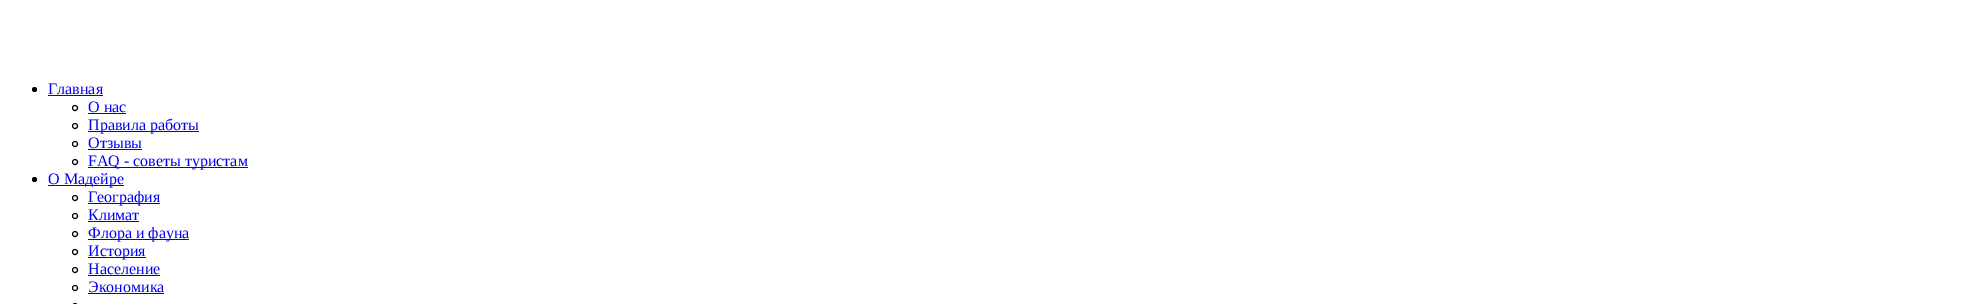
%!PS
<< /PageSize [1963 304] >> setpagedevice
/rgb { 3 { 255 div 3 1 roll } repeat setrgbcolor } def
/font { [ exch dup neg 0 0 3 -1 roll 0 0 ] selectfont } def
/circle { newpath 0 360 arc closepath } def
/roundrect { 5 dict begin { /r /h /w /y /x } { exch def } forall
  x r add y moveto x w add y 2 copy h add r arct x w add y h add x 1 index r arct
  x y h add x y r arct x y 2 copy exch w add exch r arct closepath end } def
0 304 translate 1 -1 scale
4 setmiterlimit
255 255 255 rgb
0 0 1963 304 rectfill
0 0 0 rgb
34.5 89.5 2.5 circle fill
0 0 238 rgb
48 95 55 1 rectfill
0 0 0 rgb
75 108 2.5 circle stroke
0 0 238 rgb
88 113 38 1 rectfill
0 0 0 rgb
75 126 2.5 circle stroke
0 0 238 rgb
88 131 111 1 rectfill
0 0 0 rgb
75 144 2.5 circle stroke
0 0 238 rgb
88 149 54 1 rectfill
0 0 0 rgb
75 162 2.5 circle stroke
0 0 238 rgb
88 167 160 1 rectfill
0 0 0 rgb
34.5 179.5 2.5 circle fill
0 0 238 rgb
48 185 76 1 rectfill
0 0 0 rgb
75 198 2.5 circle stroke
0 0 238 rgb
88 203 72 1 rectfill
0 0 0 rgb
75 216 2.5 circle stroke
0 0 238 rgb
88 221 51 1 rectfill
0 0 0 rgb
75 234 2.5 circle stroke
0 0 238 rgb
88 239 101 1 rectfill
0 0 0 rgb
75 252 2.5 circle stroke
0 0 238 rgb
88 257 58 1 rectfill
0 0 0 rgb
75 270 2.5 circle stroke
0 0 238 rgb
88 275 72 1 rectfill
0 0 0 rgb
75 288 2.5 circle stroke
0 0 238 rgb
88 293 76 1 rectfill
0 0 0 rgb
72.5 303.5 5 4 2.5 roundrect stroke
/LiberationSerif-Regular 16 font
0 0 238 rgb
[
  [(Главная) 48 94]
  [(О нас) 88 112]
  [(Правила работы) 88 130]
  [(Отзывы) 88 148]
  [(FAQ - советы туристам) 88 166]
  [(О Мадейре) 48 184]
  [(География) 88 202]
  [(Климат) 88 220]
  [(Флора и фауна) 88 238]
  [(История) 88 256]
  [(Население) 88 274]
  [(Экономика) 88 292]
] { aload pop moveto show } forall
showpage
